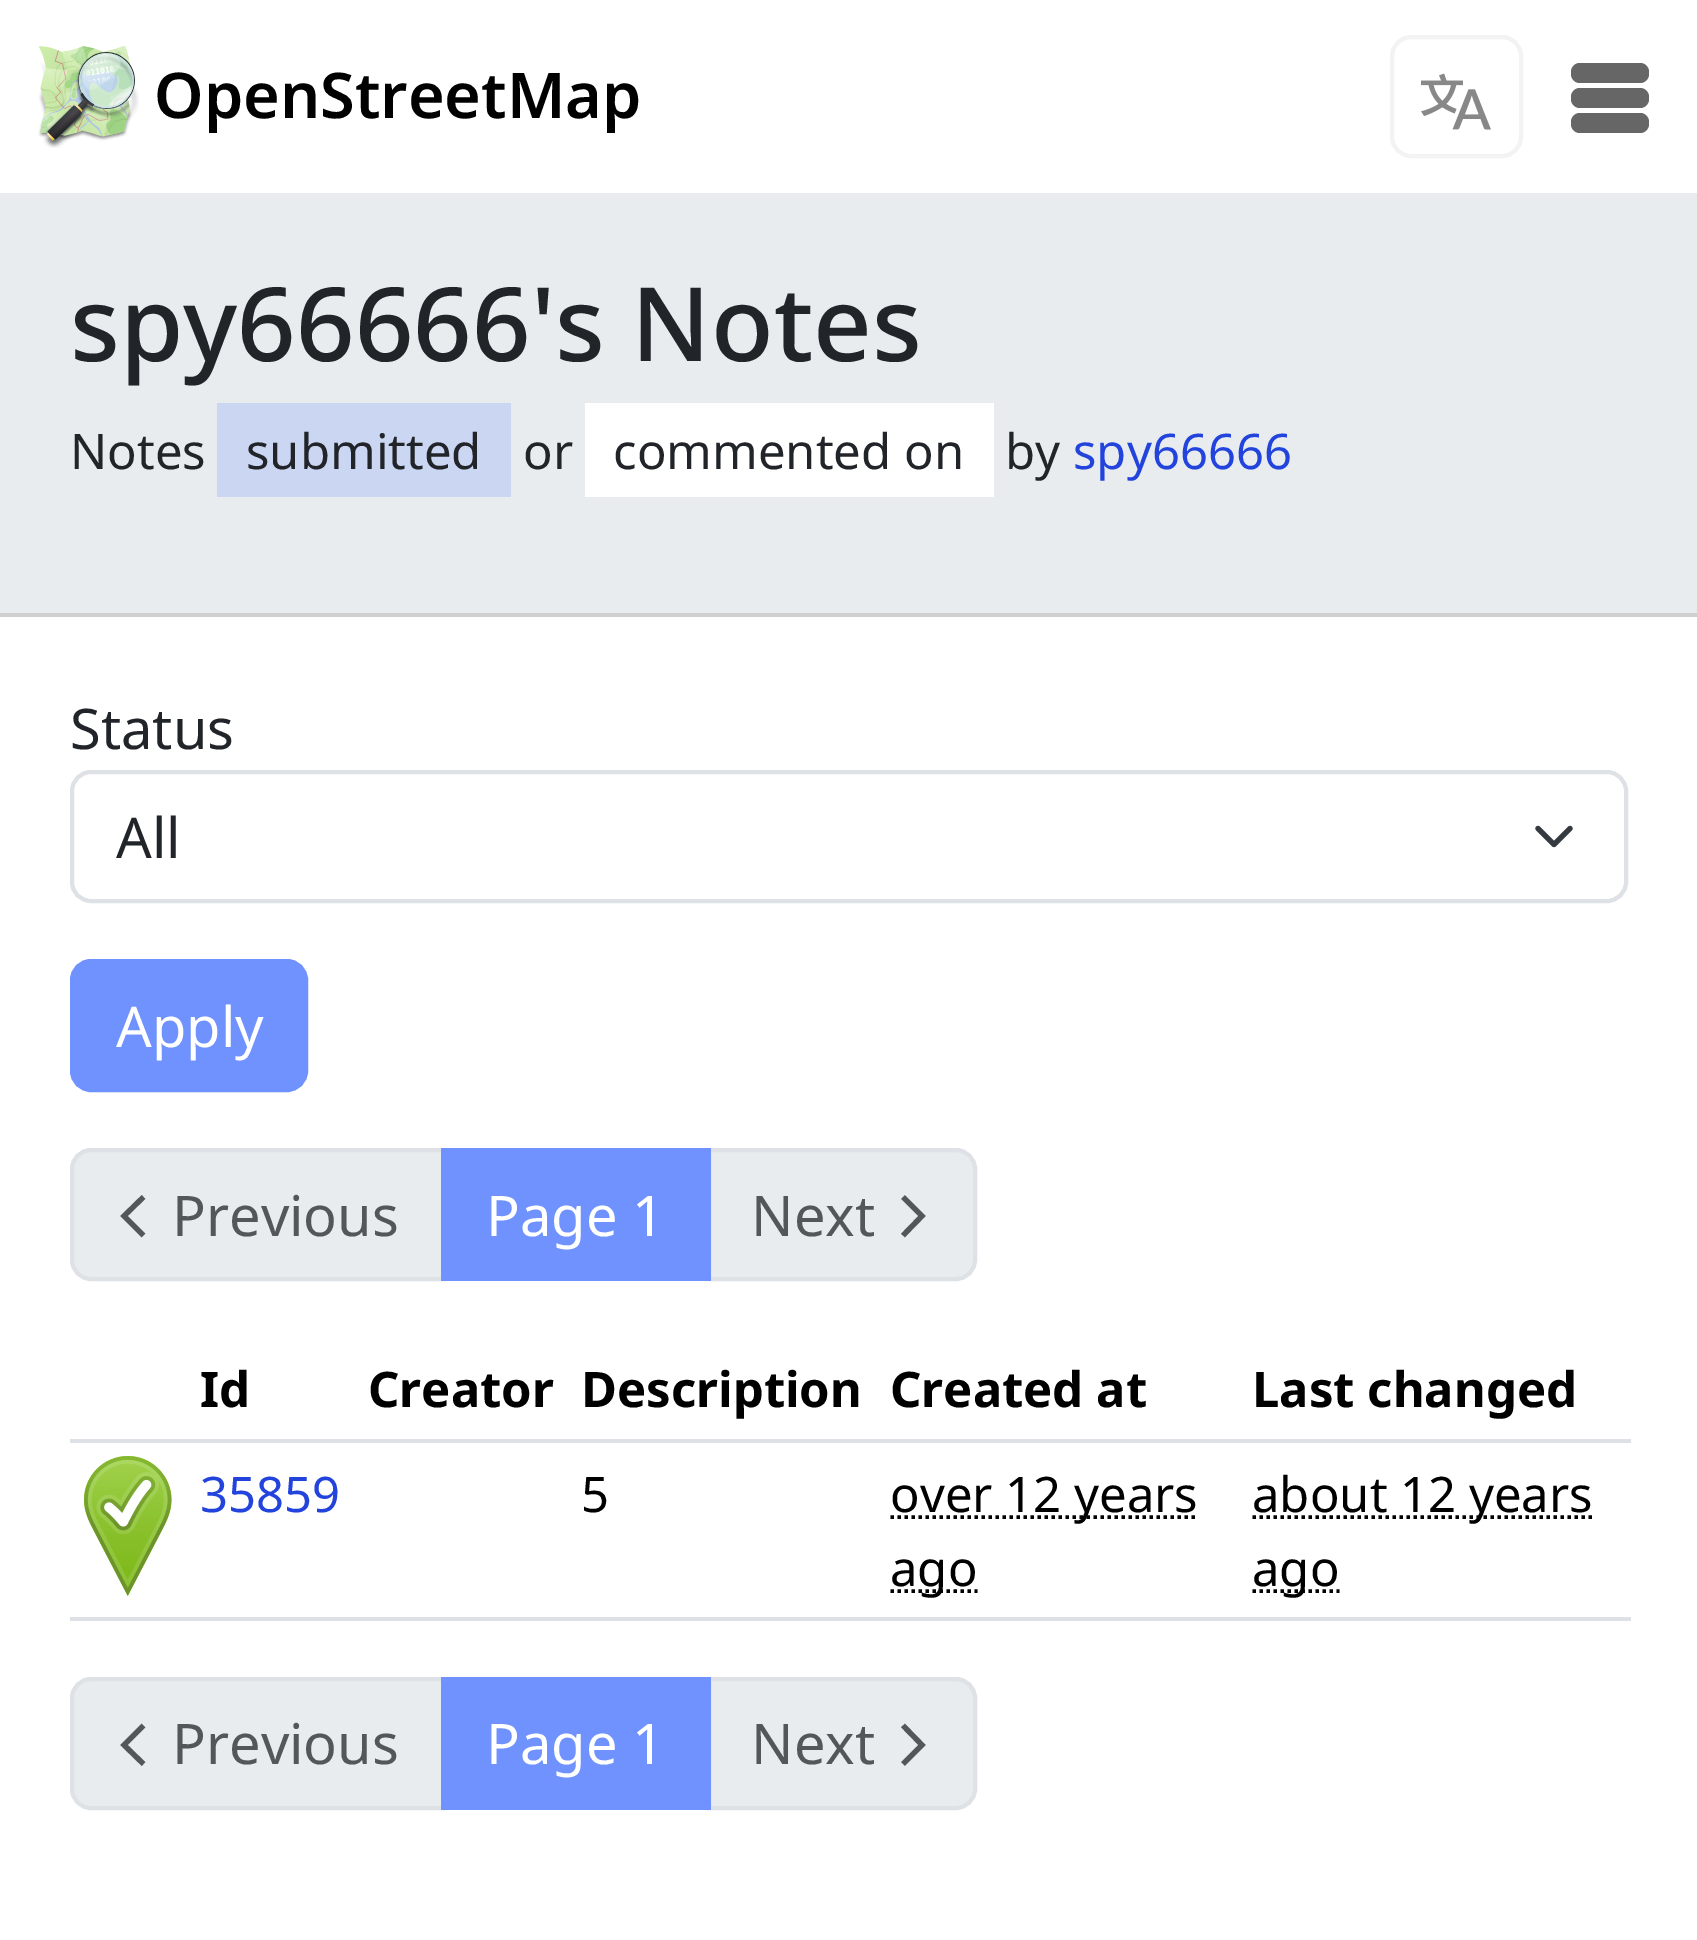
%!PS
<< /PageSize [1697 1940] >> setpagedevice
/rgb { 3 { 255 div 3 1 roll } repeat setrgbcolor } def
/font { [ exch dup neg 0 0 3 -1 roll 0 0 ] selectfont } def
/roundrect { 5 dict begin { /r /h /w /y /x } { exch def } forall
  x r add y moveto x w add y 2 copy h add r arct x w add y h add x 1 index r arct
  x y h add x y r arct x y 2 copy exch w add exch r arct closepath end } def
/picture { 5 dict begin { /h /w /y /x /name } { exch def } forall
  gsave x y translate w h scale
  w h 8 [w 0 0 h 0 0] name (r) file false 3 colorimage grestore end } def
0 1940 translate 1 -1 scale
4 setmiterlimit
255 255 255 rgb
0 0 1697 1940 rectfill
(img/1.rgb) 38 46 101 102 picture
243 243 243 rgb
4 setlinewidth
1392 37 129 119 19 roundrect stroke
(img/2.rgb) 1421 73 70 57 picture
102 102 102 rgb
1571 63 78 20 9 roundrect fill
1571 88 78 20 9 roundrect fill
1571 113 78 20 9 roundrect fill
[
  [0 193 1697 420 233 236 239]
  [0 613 1697 4 207 207 207]
  [217 403 294 94 203 214 243]
  [585 403 409 94 255 255 255]
] { aload pop rgb rectfill } forall
52 58 64 rgb
5.2 setlinewidth
1 setlinecap
1 setlinejoin
1538 828.5 moveto 1554 844.5 lineto 1570 828.5 lineto stroke
222 226 230 rgb
4 setlinewidth
0 setlinecap
0 setlinejoin
72 772 1554 129 19 roundrect stroke
112 146 255 rgb
72 961 234 129 19 roundrect gsave fill grestore
stroke
233 236 239 rgb
91 1150 moveto 443 1150 lineto 443 1279 lineto 91 1279 lineto 80.5 1279 72 1270.5 72 1260 curveto 72 1169 lineto 72 1158.5 80.5 1150 91 1150 curveto closepath gsave fill grestore
222 226 230 rgb
stroke
83 87 91 rgb
5.2 setlinewidth
143.5 1197 moveto 124 1216 lineto 143.5 1235.5 lineto stroke
233 236 239 rgb
709 1150 moveto 956 1150 lineto 966.5 1150 975 1158.5 975 1169 curveto 975 1260 lineto 975 1270.5 966.5 1279 956 1279 curveto 709 1279 lineto closepath gsave fill grestore
222 226 230 rgb
4 setlinewidth
stroke
112 146 255 rgb
441 1148 270 133 rectfill
83 87 91 rgb
5.2 setlinewidth
903 1197 moveto 922 1216 lineto 903 1235.5 lineto stroke
222 226 230 rgb
70 1439 1561 4 rectfill
(img/3.rgb) 84 1456 88 140 picture
0 0 0 rgb
3.5 setlinewidth
[3.5 3.5] 0 setdash
890.5 1517 moveto 1198 1517 lineto stroke
890.5 1591 moveto 977.5 1591 lineto stroke
222 226 230 rgb
70 1617 1561 4 rectfill
0 0 0 rgb
1252.5 1517 moveto 1593 1517 lineto stroke
1252.5 1591 moveto 1339.5 1591 lineto stroke
233 236 239 rgb
91 1679 moveto 443 1679 lineto 443 1808 lineto 91 1808 lineto 80.5 1808 72 1799.5 72 1789 curveto 72 1698 lineto 72 1687.5 80.5 1679 91 1679 curveto closepath gsave fill grestore
222 226 230 rgb
4 setlinewidth
[] 0 setdash
stroke
83 87 91 rgb
5.2 setlinewidth
143.5 1725.5 moveto 124 1745 lineto 143.5 1764 lineto stroke
233 236 239 rgb
709 1679 moveto 956 1679 lineto 966.5 1679 975 1687.5 975 1698 curveto 975 1789 lineto 975 1799.5 966.5 1808 956 1808 curveto 709 1808 lineto closepath gsave fill grestore
222 226 230 rgb
4 setlinewidth
stroke
112 146 255 rgb
441 1677 270 133 rectfill
83 87 91 rgb
5.2 setlinewidth
903 1725.5 moveto 922 1745 lineto 903 1764 lineto stroke
/NotoSans-SemiBold 63 font
0 0 0 rgb
154 118 moveto (OpenStreetMap) show
/NotoSans-Medium 102.5 font
33 37 41 rgb
70 361 moveto (spy66666's Notes) show
/NotoSans-Regular 49 font
[
  [(Notes) 70 469]
  [(submitted) 246 469]
  [(or) 523 469]
  [(commented on) 613 469]
  [(by) 1005 469]
] { aload pop moveto show } forall
34 68 221 rgb
1073 469 moveto (spy66666) show
/NotoSans-Regular 56 font
33 37 41 rgb
70 749 moveto (Status) show
116 858 moveto (All) show
255 255 255 rgb
116 1047 moveto (Apply) show
83 87 91 rgb
172 1236 moveto (Previous) show
255 255 255 rgb
486 1236 moveto (Page 1) show
83 87 91 rgb
751 1236 moveto (Next) show
/NotoSans-Bold 49 font
0 0 0 rgb
[
  [(Id) 200 1407]
  [(Creator) 368 1407]
  [(Description) 581 1407]
  [(Created at) 890 1407]
  [(Last changed) 1252 1407]
] { aload pop moveto show } forall
/NotoSans-Regular 49 font
34 68 221 rgb
200 1512 moveto (35859) show
0 0 0 rgb
[
  [(5) 581 1512]
  [(over 12 years) 890 1512]
  [(ago) 890 1586]
  [(about 12 years) 1252 1512]
  [(ago) 1252 1586]
] { aload pop moveto show } forall
/NotoSans-Regular 56 font
83 87 91 rgb
172 1764 moveto (Previous) show
255 255 255 rgb
486 1764 moveto (Page 1) show
83 87 91 rgb
751 1764 moveto (Next) show
showpage
